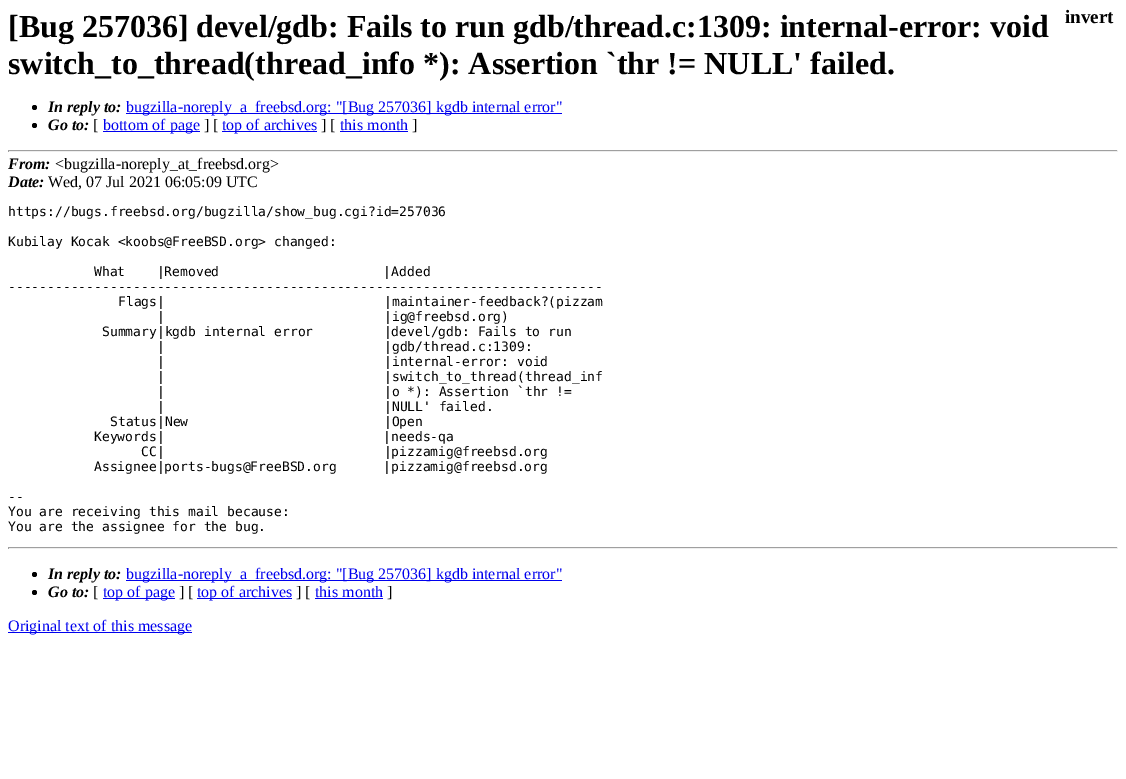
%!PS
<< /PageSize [1126 779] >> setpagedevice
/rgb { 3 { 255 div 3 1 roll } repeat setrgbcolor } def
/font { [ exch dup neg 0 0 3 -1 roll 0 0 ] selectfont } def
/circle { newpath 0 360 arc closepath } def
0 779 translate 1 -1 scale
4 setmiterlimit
255 255 255 rgb
0 0 1126 779 rectfill
0 0 0 rgb
34.5 107.5 2.5 circle fill
0 0 238 rgb
126 113 436 1 rectfill
0 0 0 rgb
34.5 125.5 2.5 circle fill
[
  [103 131 97 1 0 0 238]
  [222 131 95 1 0 0 238]
  [340 131 68 1 0 0 238]
  [8 150 1110 1 159 159 159]
  [1117 150 1 2 238 238 238]
  [8 151 1110 1 238 238 238]
  [8 150 1 2 159 159 159]
  [8 547 1110 1 159 159 159]
  [1117 547 1 2 238 238 238]
  [8 548 1110 1 238 238 238]
  [8 547 1 2 159 159 159]
] { aload pop rgb rectfill } forall
0 0 0 rgb
34.5 574.5 2.5 circle fill
0 0 238 rgb
126 580 436 1 rectfill
0 0 0 rgb
34.5 592.5 2.5 circle fill
[
  [103 598 72 1 0 0 238]
  [197 598 95 1 0 0 238]
  [315 598 68 1 0 0 238]
  [8 632 184 1 0 0 238]
] { aload pop rgb rectfill } forall
/LiberationSerif-Bold 32 font
0 0 0 rgb
8 37 moveto ([Bug 257036] devel/gdb: Fails to run gdb/thread.c:1309: internal-error: void) show
8 74 moveto (switch_to_thread\(thread_info *\): Assertion `thr != NULL' failed.) show
/LiberationSerif-BoldItalic 16 font
48 112 moveto (In reply to:) show
/LiberationSerif-Regular 16 font
0 0 238 rgb
126 112 moveto (bugzilla-noreply_a_freebsd.org: "[Bug 257036] kgdb internal error") show
/LiberationSerif-BoldItalic 16 font
0 0 0 rgb
48 130 moveto (Go to:) show
/LiberationSerif-Regular 16 font
93 130 moveto ([) show
0 0 238 rgb
103 130 moveto (bottom of page) show
0 0 0 rgb
204 130 moveto (] [) show
0 0 238 rgb
222 130 moveto (top of archives) show
0 0 0 rgb
321 130 moveto (] [) show
0 0 238 rgb
340 130 moveto (this month) show
0 0 0 rgb
412 130 moveto (]) show
/LiberationSerif-Bold 19 font
1065 23 moveto (invert) show
/LiberationSerif-BoldItalic 16 font
8 169 moveto (From:) show
/LiberationSerif-Regular 16 font
55 169 moveto (<bugzilla-noreply_at_freebsd.org>) show
/LiberationSerif-BoldItalic 16 font
8 187 moveto (Date:) show
/LiberationSerif-Regular 16 font
48 187 moveto (Wed, 07 Jul 2021 06:05:09 UTC) show
/DejaVuSansMono-Regular 13 font
[
  [(https://bugs.freebsd.org/bugzilla/show_bug.cgi?id=257036) 8 216]
  [(Kubilay Kocak <koobs@FreeBSD.org> changed:) 8 246]
  [(What    |Removed                     |Added) 94 276]
  [(----------------------------------------------------------------------------) 8 291]
  [(Flags|                            |maintainer-feedback?\(pizzam) 118 306]
  [(|                            |ig@freebsd.org\)) 157 321]
  [(Summary|kgdb internal error         |devel/gdb: Fails to run) 102 336]
  [(|                            |gdb/thread.c:1309:) 157 351]
  [(|                            |internal-error: void) 157 366]
  [(|                            |switch_to_thread\(thread_inf) 157 381]
  [(|                            |o *\): Assertion `thr !=) 157 396]
  [(|                            |NULL' failed.) 157 411]
  [(Status|New                         |Open) 110 426]
  [(Keywords|                            |needs-qa) 94 441]
  [(CC|                            |pizzamig@freebsd.org) 141 456]
  [(Assignee|ports-bugs@FreeBSD.org      |pizzamig@freebsd.org) 94 471]
  [(--) 8 501]
  [(You are receiving this mail because:) 8 516]
  [(You are the assignee for the bug.) 8 531]
] { aload pop moveto show } forall
/LiberationSerif-BoldItalic 16 font
48 579 moveto (In reply to:) show
/LiberationSerif-Regular 16 font
0 0 238 rgb
126 579 moveto (bugzilla-noreply_a_freebsd.org: "[Bug 257036] kgdb internal error") show
/LiberationSerif-BoldItalic 16 font
0 0 0 rgb
48 597 moveto (Go to:) show
/LiberationSerif-Regular 16 font
93 597 moveto ([) show
0 0 238 rgb
103 597 moveto (top of page) show
0 0 0 rgb
179 597 moveto (] [) show
0 0 238 rgb
197 597 moveto (top of archives) show
0 0 0 rgb
296 597 moveto (] [) show
0 0 238 rgb
315 597 moveto (this month) show
0 0 0 rgb
387 597 moveto (]) show
0 0 238 rgb
8 631 moveto (Original text of this message) show
showpage
